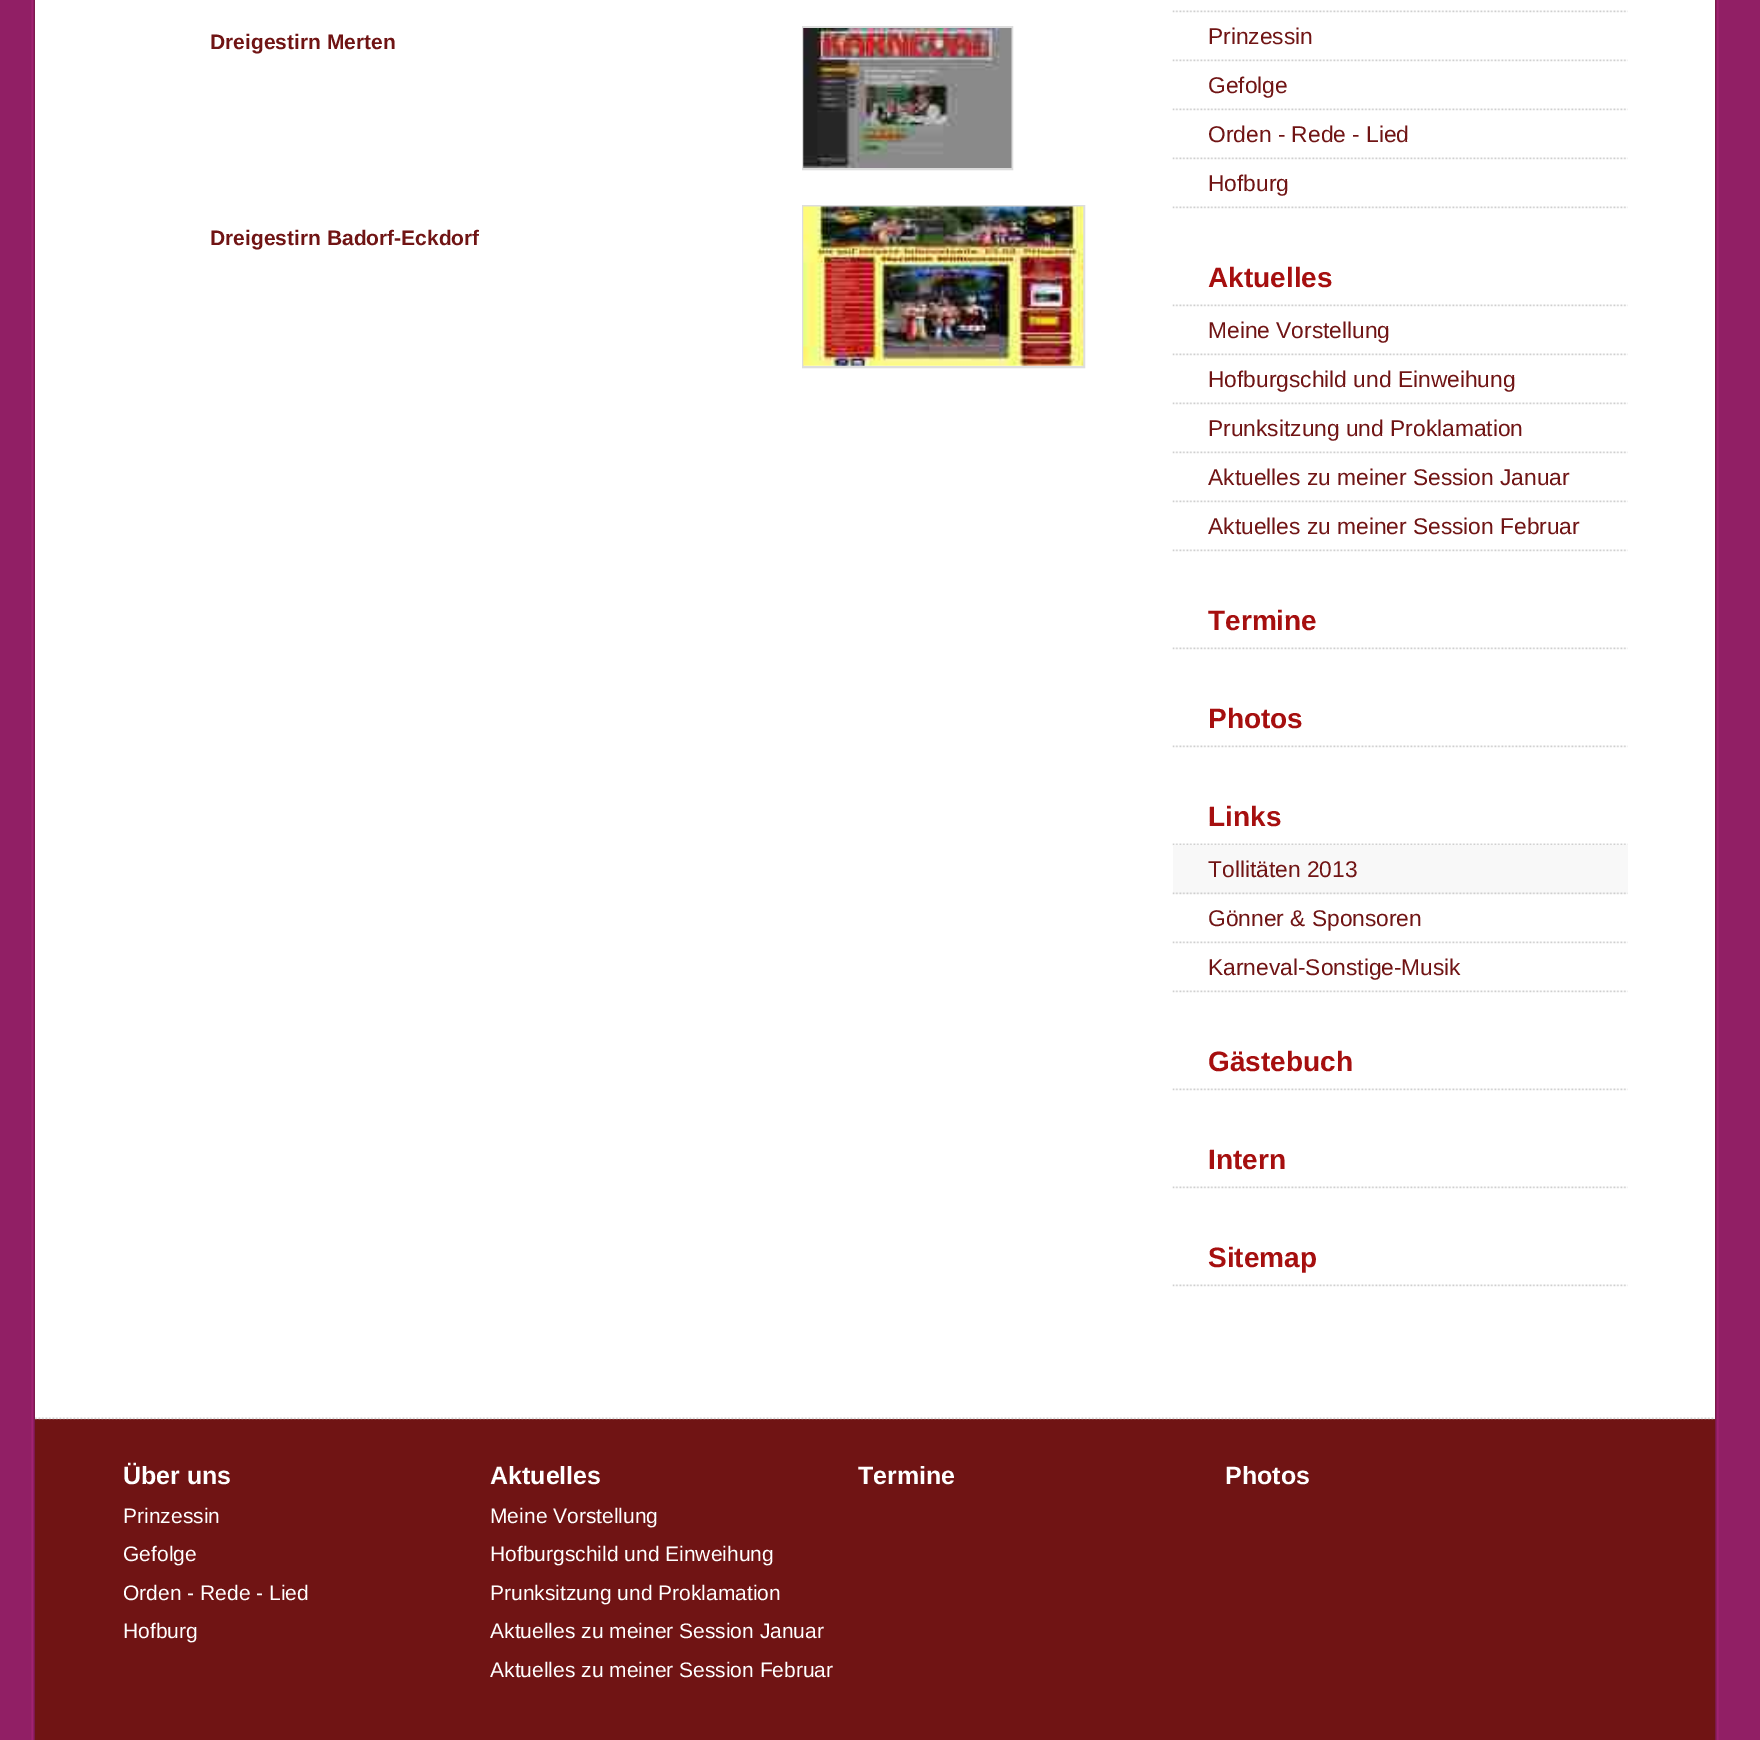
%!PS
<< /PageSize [1760 1740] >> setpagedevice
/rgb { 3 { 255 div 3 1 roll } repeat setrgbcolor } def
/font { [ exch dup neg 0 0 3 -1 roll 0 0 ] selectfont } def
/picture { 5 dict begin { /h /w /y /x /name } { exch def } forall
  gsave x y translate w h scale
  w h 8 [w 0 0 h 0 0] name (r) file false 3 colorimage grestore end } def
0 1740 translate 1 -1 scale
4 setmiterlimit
145 31 101 rgb
0 0 1760 1740 rectfill
(img/1.rgb) 31 0 1688 1740 picture
255 255 255 rgb
35 0 1680 1419 rectfill
221 221 221 rgb
2 setlinewidth
803 27 209 142 rectstroke
(img/2.rgb) 803 28 209 140 picture
803 206 281 161 rectstroke
(img/3.rgb) 803 206 281 160 picture
(img/4.rgb) 1172 10 456 3 picture
(img/4.rgb) 1172 59 456 3 picture
(img/4.rgb) 1172 108 456 3 picture
(img/4.rgb) 1172 157 456 3 picture
(img/4.rgb) 1172 206 456 3 picture
(img/4.rgb) 1172 304 456 3 picture
(img/4.rgb) 1172 353 456 3 picture
(img/4.rgb) 1172 402 456 3 picture
(img/4.rgb) 1172 451 456 3 picture
(img/4.rgb) 1172 500 456 3 picture
(img/4.rgb) 1172 549 456 3 picture
(img/4.rgb) 1172 647 456 3 picture
(img/4.rgb) 1172 745 456 3 picture
(img/4.rgb) 1172 843 456 3 picture
248 248 248 rgb
1173 845 455 49 rectfill
(img/5.rgb) 1172 892 456 3 picture
(img/4.rgb) 1172 941 456 3 picture
(img/4.rgb) 1172 990 456 3 picture
(img/4.rgb) 1172 1088 456 3 picture
(img/4.rgb) 1172 1186 456 3 picture
(img/4.rgb) 1172 1284 456 3 picture
112 20 20 rgb
35 1419 1680 321 rectfill
(img/6.rgb) 35 1417 1680 3 picture
/LiberationSans-Bold 21 font
210 49 moveto (Dreigestirn Merten) show
210 245 moveto (Dreigestirn Badorf-Eckdorf) show
/LiberationSans-Regular 22.75 font
[
  [(Prinzessin) 1208 44]
  [(Gefolge) 1208 93]
  [(Orden - Rede - Lied) 1208 142]
  [(Hofburg) 1208 191]
] { aload pop moveto show } forall
/LiberationSans-Bold 28 font
166 15 15 rgb
1208 287 moveto (Aktuelles) show
/LiberationSans-Regular 22.75 font
112 20 20 rgb
[
  [(Meine Vorstellung) 1208 338]
  [(Hofburgschild und Einweihung) 1208 387]
  [(Prunksitzung und Proklamation) 1208 436]
  [(Aktuelles zu meiner Session Januar) 1208 485]
  [(Aktuelles zu meiner Session Februar) 1208 534]
] { aload pop moveto show } forall
/LiberationSans-Bold 28 font
166 15 15 rgb
[
  [(Termine) 1208 630]
  [(Photos) 1208 728]
  [(Links) 1208 826]
] { aload pop moveto show } forall
/LiberationSans-Regular 22.75 font
112 20 20 rgb
[
  [(Tollitäten 2013) 1208 877]
  [(Gönner & Sponsoren) 1208 926]
  [(Karneval-Sonstige-Musik) 1208 975]
] { aload pop moveto show } forall
/LiberationSans-Bold 28 font
166 15 15 rgb
[
  [(Gästebuch) 1208 1071]
  [(Intern) 1208 1169]
  [(Sitemap) 1208 1267]
] { aload pop moveto show } forall
/LiberationSans-Bold 25 font
255 255 255 rgb
123 1484 moveto (Über uns) show
/LiberationSans-Regular 21 font
[
  [(Prinzessin) 123 1523]
  [(Gefolge) 123 1561]
  [(Orden - Rede - Lied) 123 1600]
  [(Hofburg) 123 1638]
] { aload pop moveto show } forall
/LiberationSans-Bold 25 font
490 1484 moveto (Aktuelles) show
/LiberationSans-Regular 21 font
[
  [(Meine Vorstellung) 490 1523]
  [(Hofburgschild und Einweihung) 490 1561]
  [(Prunksitzung und Proklamation) 490 1600]
  [(Aktuelles zu meiner Session Januar) 490 1638]
  [(Aktuelles zu meiner Session Februar) 490 1677]
] { aload pop moveto show } forall
/LiberationSans-Bold 25 font
858 1484 moveto (Termine) show
1225 1484 moveto (Photos) show
showpage
